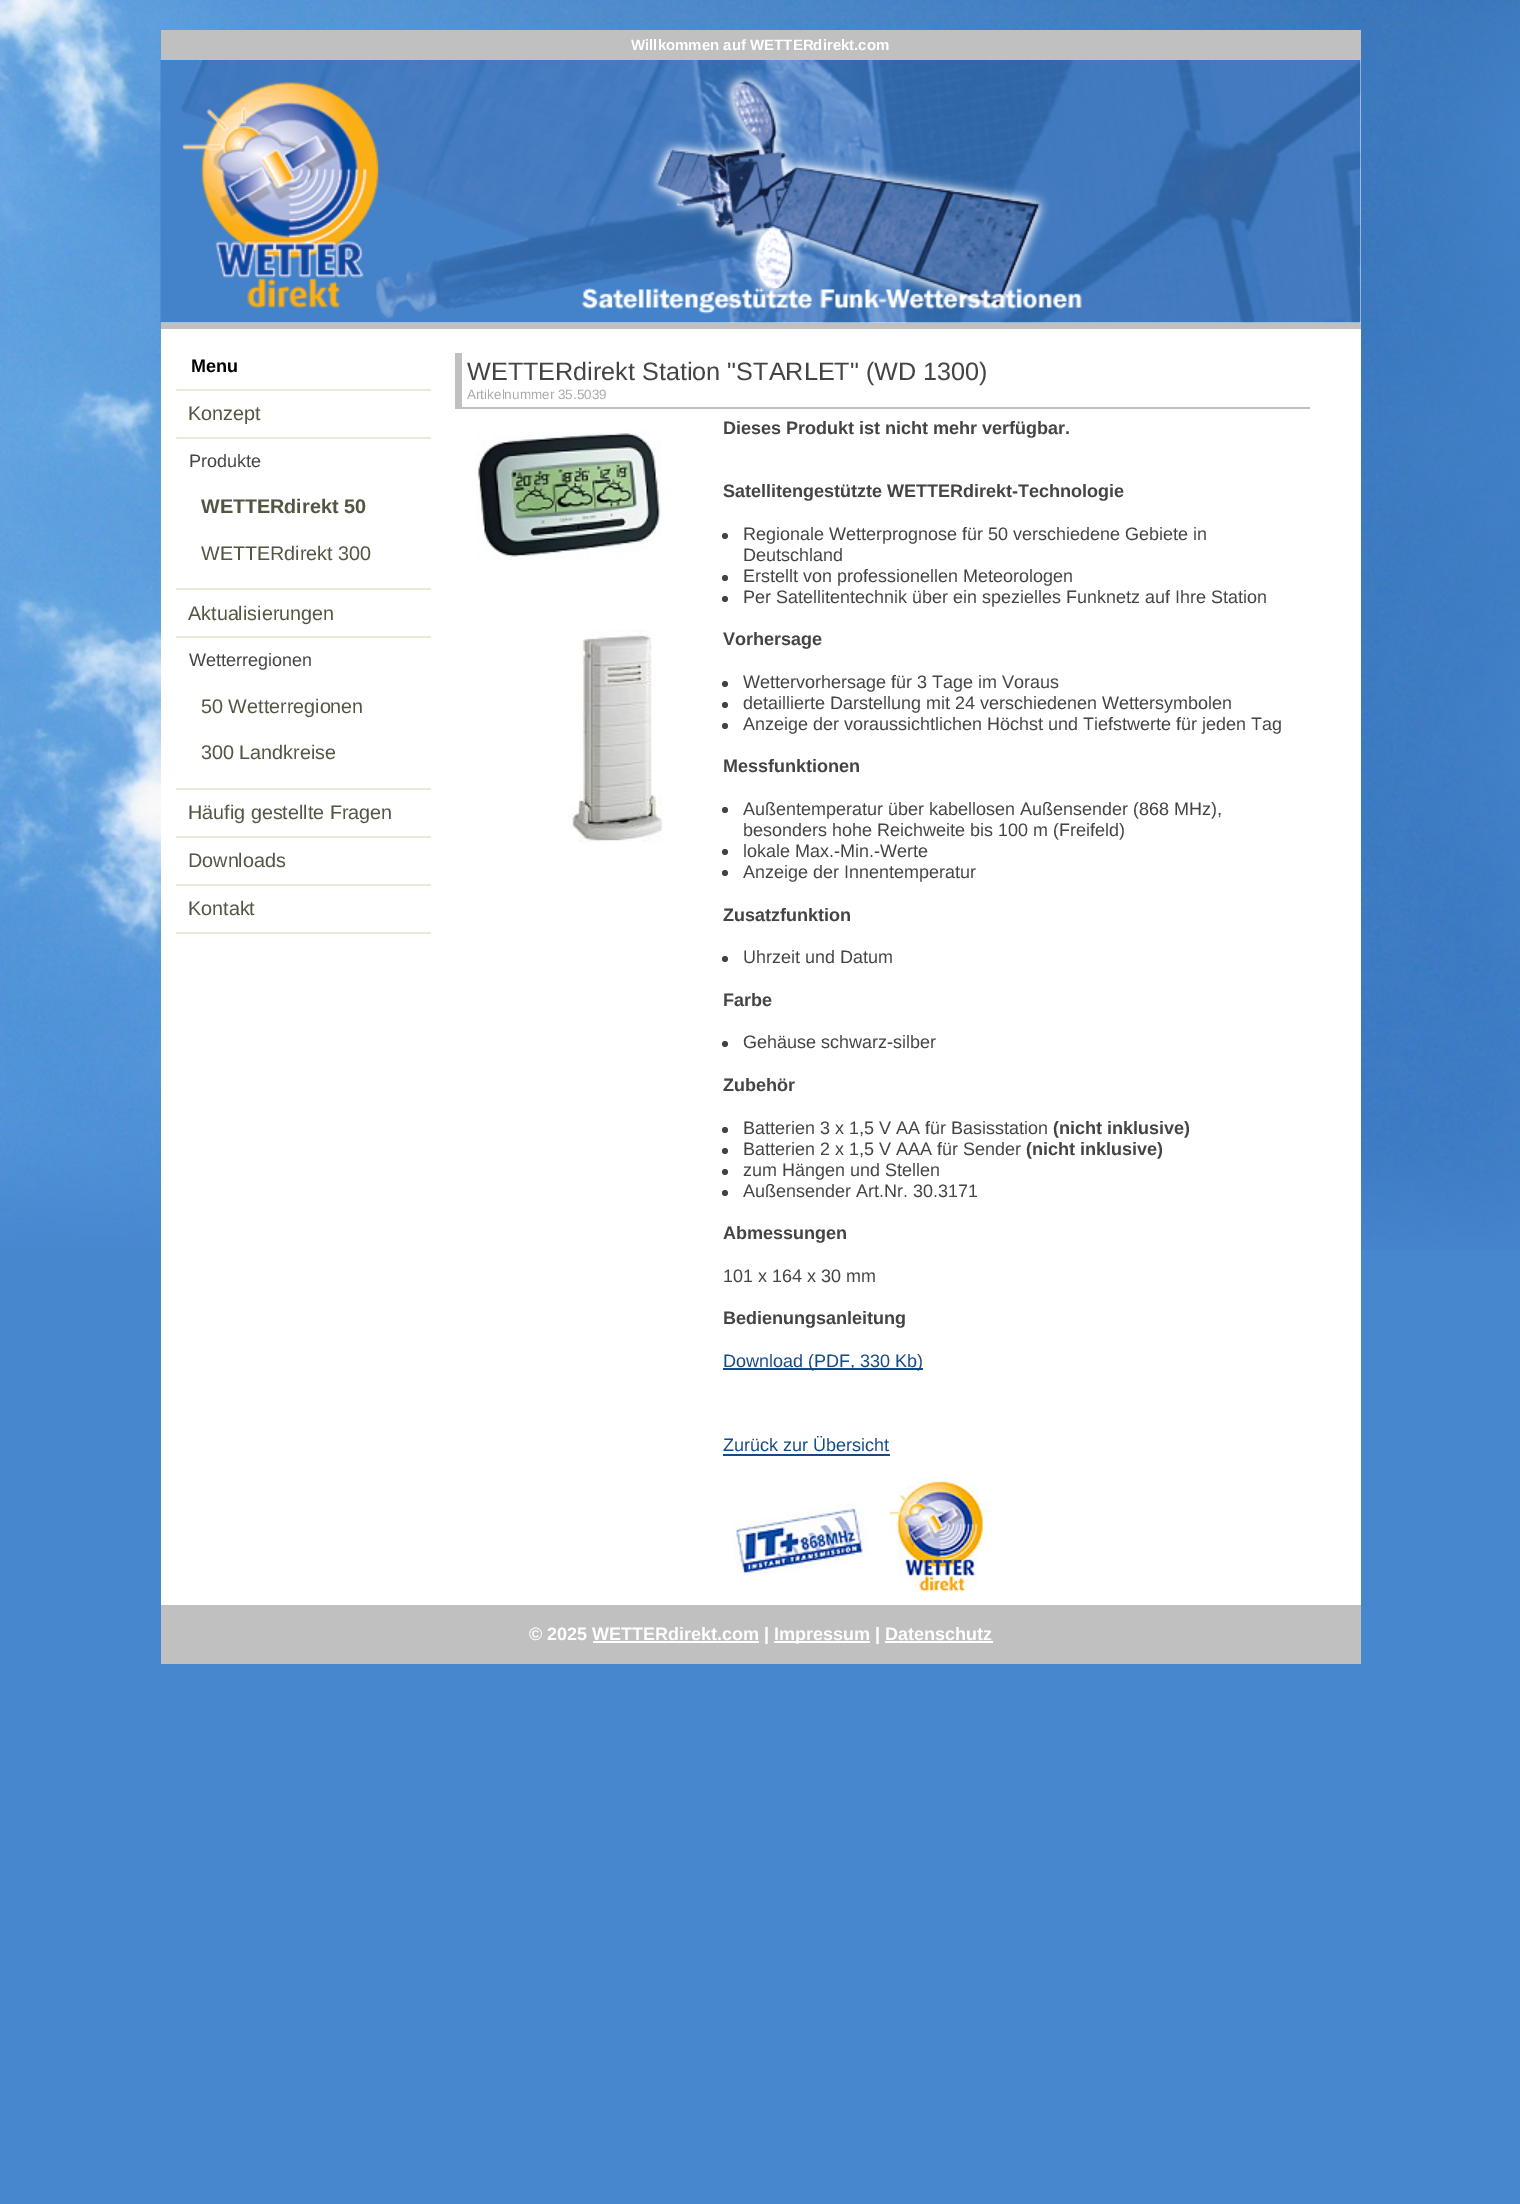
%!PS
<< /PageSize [1520 2204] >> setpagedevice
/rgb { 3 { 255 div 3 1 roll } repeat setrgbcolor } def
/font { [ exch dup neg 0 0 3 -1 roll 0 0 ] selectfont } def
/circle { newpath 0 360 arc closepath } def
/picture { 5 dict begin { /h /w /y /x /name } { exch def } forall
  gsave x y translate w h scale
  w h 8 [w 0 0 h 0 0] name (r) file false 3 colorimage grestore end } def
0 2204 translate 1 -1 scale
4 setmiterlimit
71 135 206 rgb
0 0 1520 2204 rectfill
(img/1.rgb) 0 0 1520 1250 picture
192 192 192 rgb
161 30 1200 30 rectfill
255 255 255 rgb
161 60 1200 263 rectfill
(img/2.rgb) 160 60 1201 263 picture
[
  [161 329 1200 1276 255 255 255]
  [161 323 1200 6 192 192 192]
  [176 389 255 2 234 234 218]
  [176 437 255 2 234 234 218]
  [176 588 255 2 234 234 218]
  [176 636 255 2 234 234 218]
  [176 788 255 2 234 234 218]
  [176 836 255 2 234 234 218]
  [176 884 255 2 234 234 218]
  [176 932 255 2 234 234 218]
  [455 407 855 2 192 192 192]
  [455 353 7 55 192 192 192]
] { aload pop rgb rectfill } forall
(img/3.rgb) 476 431 185 130 picture
(img/4.rgb) 568 630 95 213 picture
68 68 68 rgb
725 536 3 circle fill
725 578 3 circle fill
725 599 3 circle fill
725 684 3 circle fill
725 705 3 circle fill
725 726 3 circle fill
725 810 3 circle fill
725 852 3 circle fill
725 873 3 circle fill
725 959 3 circle fill
725 1044 3 circle fill
725 1130 3 circle fill
725 1151 3 circle fill
725 1172 3 circle fill
725 1193 3 circle fill
21 74 137 rgb
723 1368 200 2 rectfill
723 1454 167 2 rectfill
(img/5.rgb) 733 1477 253 115 picture
[
  [161 1605 1200 59 192 192 192]
  [774 1641 96 2 255 255 255]
  [593 1641 166 2 255 255 255]
  [885 1641 108 2 255 255 255]
] { aload pop rgb rectfill } forall
/LiberationSans-Bold 15 font
631 50 moveto (Willkommen auf WETTERdirekt.com) show
/LiberationSans-Bold 18 font
0 0 0 rgb
191 372 moveto (Menu) show
/LiberationSans-Regular 19.75 font
85 85 68 rgb
188 420 moveto (Konzept) show
/LiberationSans-Regular 18 font
68 68 68 rgb
189 467 moveto (Produkte) show
/LiberationSans-Bold 19.75 font
85 85 68 rgb
201 513 moveto (WETTERdirekt 50) show
/LiberationSans-Regular 19.75 font
201 560 moveto (WETTERdirekt 300) show
188 620 moveto (Aktualisierungen) show
/LiberationSans-Regular 18 font
68 68 68 rgb
189 666 moveto (Wetterregionen) show
/LiberationSans-Regular 19.75 font
85 85 68 rgb
[
  [(50 Wetterregionen) 201 713]
  [(300 Landkreise) 201 759]
  [(Häufig gestellte Fragen) 188 819]
  [(Downloads) 188 867]
  [(Kontakt) 188 915]
] { aload pop moveto show } forall
/LiberationSans-Regular 25.2 font
68 68 68 rgb
467 380 moveto (WETTERdirekt Station "STARLET" \(WD 1300\)) show
/LiberationSans-Regular 13.5 font
170 170 170 rgb
467 399 moveto (Artikelnummer 35.5039) show
/LiberationSans-Bold 18 font
68 68 68 rgb
723 434 moveto (Dieses Produkt ist nicht mehr verfügbar.) show
723 497 moveto (Satellitengestützte WETTERdirekt-Technologie) show
/LiberationSans-Regular 18 font
[
  [(Regionale Wetterprognose für 50 verschiedene Gebiete in) 743 540]
  [(Deutschland) 743 561]
  [(Erstellt von professionellen Meteorologen) 743 582]
  [(Per Satellitentechnik über ein spezielles Funknetz auf Ihre Station) 743 603]
] { aload pop moveto show } forall
/LiberationSans-Bold 18 font
723 645 moveto (Vorhersage) show
/LiberationSans-Regular 18 font
[
  [(Wettervorhersage für 3 Tage im Voraus) 743 688]
  [(detaillierte Darstellung mit 24 verschiedenen Wettersymbolen) 743 709]
  [(Anzeige der voraussichtlichen Höchst und Tiefstwerte für jeden Tag) 743 730]
] { aload pop moveto show } forall
/LiberationSans-Bold 18 font
723 772 moveto (Messfunktionen) show
/LiberationSans-Regular 18 font
[
  [(Außentemperatur über kabellosen Außensender \(868 MHz\),) 743 815]
  [(besonders hohe Reichweite bis 100 m \(Freifeld\)) 743 836]
  [(lokale Max.-Min.-Werte) 743 857]
  [(Anzeige der Innentemperatur) 743 878]
] { aload pop moveto show } forall
/LiberationSans-Bold 18 font
723 921 moveto (Zusatzfunktion) show
/LiberationSans-Regular 18 font
743 963 moveto (Uhrzeit und Datum) show
/LiberationSans-Bold 18 font
723 1006 moveto (Farbe) show
/LiberationSans-Regular 18 font
743 1048 moveto (Gehäuse schwarz-silber) show
/LiberationSans-Bold 18 font
723 1091 moveto (Zubehör) show
/LiberationSans-Regular 18 font
743 1134 moveto (Batterien 3 x 1,5 V AA für Basisstation) show
/LiberationSans-Bold 18 font
1053 1134 moveto (\(nicht inklusive\)) show
/LiberationSans-Regular 18 font
743 1155 moveto (Batterien 2 x 1,5 V AAA für Sender) show
/LiberationSans-Bold 18 font
1026 1155 moveto (\(nicht inklusive\)) show
/LiberationSans-Regular 18 font
743 1176 moveto (zum Hängen und Stellen) show
743 1197 moveto (Außensender Art.Nr. 30.3171) show
/LiberationSans-Bold 18 font
723 1239 moveto (Abmessungen) show
/LiberationSans-Regular 18 font
723 1282 moveto (101 x 164 x 30 mm) show
/LiberationSans-Bold 18 font
723 1324 moveto (Bedienungsanleitung) show
/LiberationSans-Regular 18 font
21 74 137 rgb
723 1367 moveto (Download \(PDF, 330 Kb\)) show
723 1451 moveto (Zurück zur Übersicht) show
/LiberationSans-Bold 18 font
255 255 255 rgb
529 1640 moveto (© 2025 WETTERdirekt.com |) show
774 1640 moveto (Impressum | Datenschutz) show
showpage
